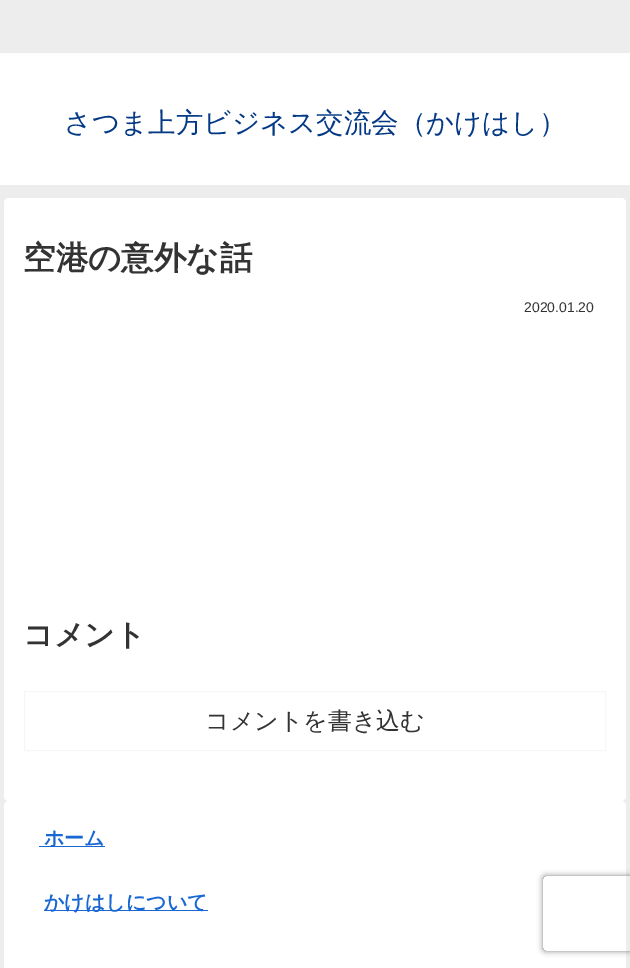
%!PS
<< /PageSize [630 968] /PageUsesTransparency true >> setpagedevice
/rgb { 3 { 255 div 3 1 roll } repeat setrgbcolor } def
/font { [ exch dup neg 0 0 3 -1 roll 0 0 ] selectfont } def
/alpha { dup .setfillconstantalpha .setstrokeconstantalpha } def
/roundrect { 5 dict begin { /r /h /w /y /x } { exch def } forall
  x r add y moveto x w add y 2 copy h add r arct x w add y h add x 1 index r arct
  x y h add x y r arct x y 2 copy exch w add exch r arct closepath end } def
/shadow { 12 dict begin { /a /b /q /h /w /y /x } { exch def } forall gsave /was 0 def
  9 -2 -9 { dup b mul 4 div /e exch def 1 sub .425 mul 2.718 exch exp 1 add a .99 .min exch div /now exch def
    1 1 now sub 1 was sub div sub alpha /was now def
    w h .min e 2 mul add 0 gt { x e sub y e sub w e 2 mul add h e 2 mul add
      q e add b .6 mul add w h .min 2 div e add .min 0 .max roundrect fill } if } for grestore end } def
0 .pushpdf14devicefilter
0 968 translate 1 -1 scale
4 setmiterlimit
237 237 237 rgb
0 0 630 968 rectfill
255 255 255 rgb
0 53 630 132 rectfill
4 198 622 603 5 roundrect fill
246 246 246 rgb
24.5 691.5 581 59 rectstroke
255 255 255 rgb
4 801 622 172 5 roundrect fill
25 103 210 rgb
39 846 66 1 rectfill
44 910 164 1 rectfill
gsave
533 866 moveto 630 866 lineto 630 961 lineto 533 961 lineto closepath 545.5 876 moveto 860.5 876 lineto 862 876 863 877 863 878.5 curveto 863 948.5 lineto 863 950 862 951 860.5 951 curveto 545.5 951 lineto 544 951 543 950 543 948.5 curveto 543 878.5 lineto 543 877 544 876 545.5 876 curveto closepath eoclip newpath
128 128 128 rgb
543 876 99 75 2.5 3 1 shadow
grestore
/WenQuanYiZenHei-Medium 27.5 font
3 57 133 rgb
64 132 moveto (さつま上方ビジネス交流会（かけはし）) show
/WenQuanYiZenHei-Bold 32.5 font
51 51 51 rgb
23 269 moveto (空港の意外な話) show
/LiberationSans-Regular 14 font
524 312 moveto (2020.01.20) show
/WenQuanYiZenHei-Bold 30 font
23 645 moveto (コメント) show
/WenQuanYiZenHei-Medium 24 font
205 729 moveto (コメントを書き込む) show
/WenQuanYiZenHei-Bold 20 font
25 103 210 rgb
44 845 moveto (ホーム) show
44 909 moveto (かけはしについて) show
.poppdf14devicefilter showpage
